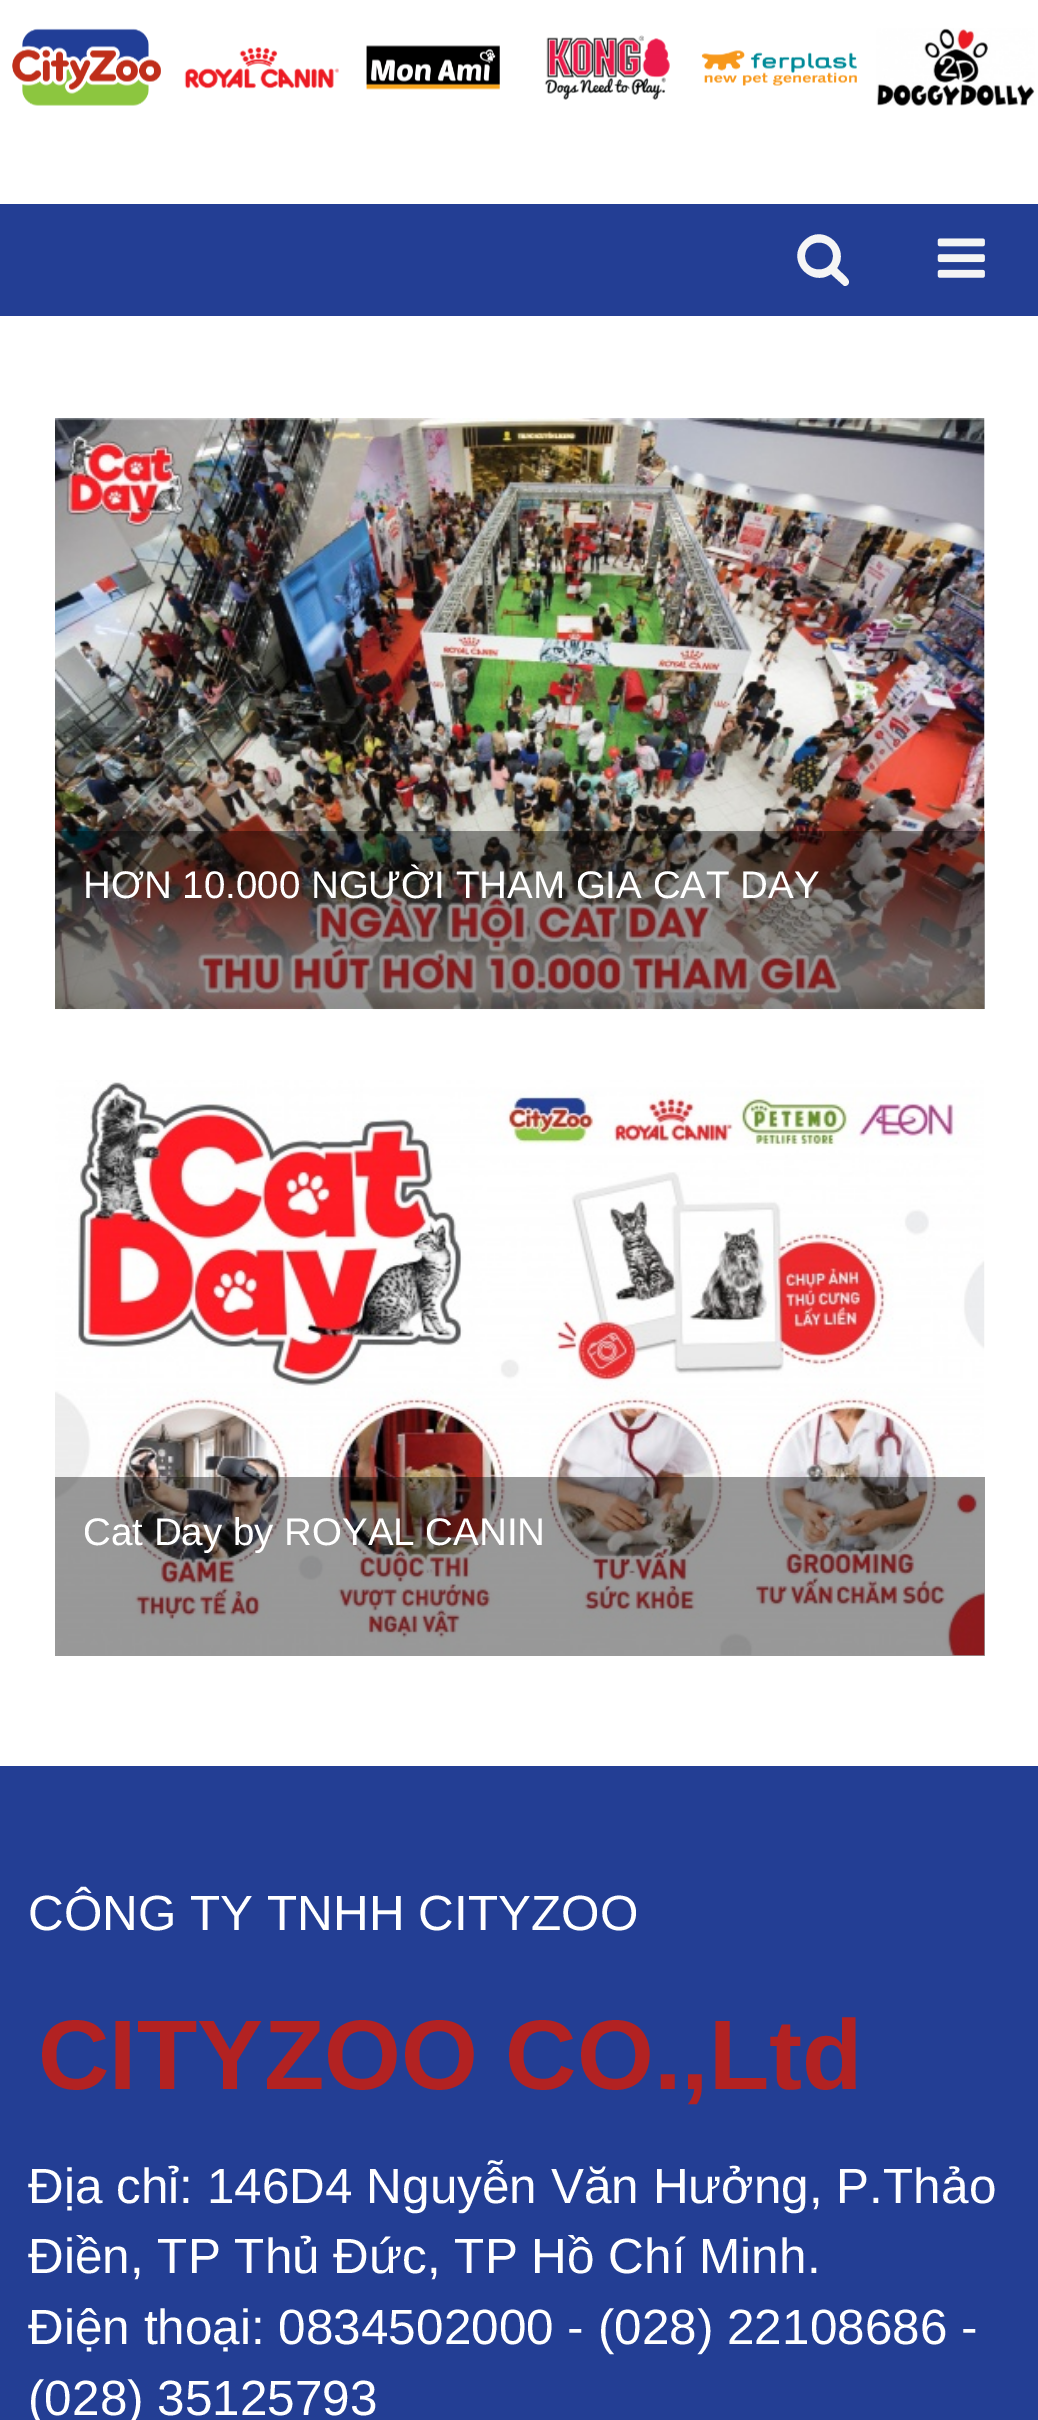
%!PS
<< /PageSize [1038 2420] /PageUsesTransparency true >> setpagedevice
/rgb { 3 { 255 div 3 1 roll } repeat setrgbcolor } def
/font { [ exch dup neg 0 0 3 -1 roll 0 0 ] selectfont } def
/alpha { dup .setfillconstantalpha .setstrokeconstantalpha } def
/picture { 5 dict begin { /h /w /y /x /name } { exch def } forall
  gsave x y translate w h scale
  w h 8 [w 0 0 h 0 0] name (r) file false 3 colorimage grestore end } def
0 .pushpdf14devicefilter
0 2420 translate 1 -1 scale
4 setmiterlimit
255 255 255 rgb
0 0 1038 2420 rectfill
(img/1.rgb) 12 28 149 78 picture
(img/2.rgb) 184 47 155 42 picture
(img/3.rgb) 366 45 134 45 picture
(img/4.rgb) 544 35 126 65 picture
(img/5.rgb) 701 50 156 36 picture
(img/6.rgb) 876 28 159 78 picture
35 62 148 rgb
0 204 1038 112 rectfill
245 245 245 rgb
833 256 moveto 833 274 805 274 805 256 curveto 805 238 833 238 833 256 curveto closepath 849 282 moveto 849 278 839 271 837 268 curveto 851 248 823 222 804 241 curveto 785 260 811 288 831 274 curveto 842 284 lineto 843 285 844 286 845 286 curveto 847 286 849 284 849 282 curveto closepath fill
(img/7.rgb) 937 238 48 40 picture
(img/8.rgb) 55 418 930 592 picture
0.4 alpha
0 0 0 rgb
55 831 930 178 rectfill
1 alpha
(img/9.rgb) 55 1080 930 576 picture
0.4 alpha
55 1477 930 179 rectfill
1 alpha
35 62 148 rgb
0 1766 1038 654 rectfill
/LiberationSans-Regular 38.5 font
255 255 255 rgb
83 898 moveto (HƠN 10.000 NGƯỜI THAM GIA CAT DAY) show
83 1545 moveto (Cat Day by ROYAL CANIN) show
/LiberationSans-Regular 49.5 font
28 1930 moveto (CÔNG TY TNHH CITYZOO) show
/LiberationSans-Bold 99 font
178 34 34 rgb
38 2089 moveto (CITYZOO CO.,Ltd) show
/LiberationSans-Regular 49.5 font
255 255 255 rgb
[
  [(Địa chỉ: 146D4 Nguyễn Văn Hưởng, P.Thảo) 28 2203]
  [(Điền, TP Thủ Đức, TP Hồ Chí Minh.) 28 2273]
  [(Điện thoại: 0834502000 - \(028\) 22108686 -) 28 2344]
  [(\(028\) 35125793) 28 2415]
] { aload pop moveto show } forall
.poppdf14devicefilter showpage
